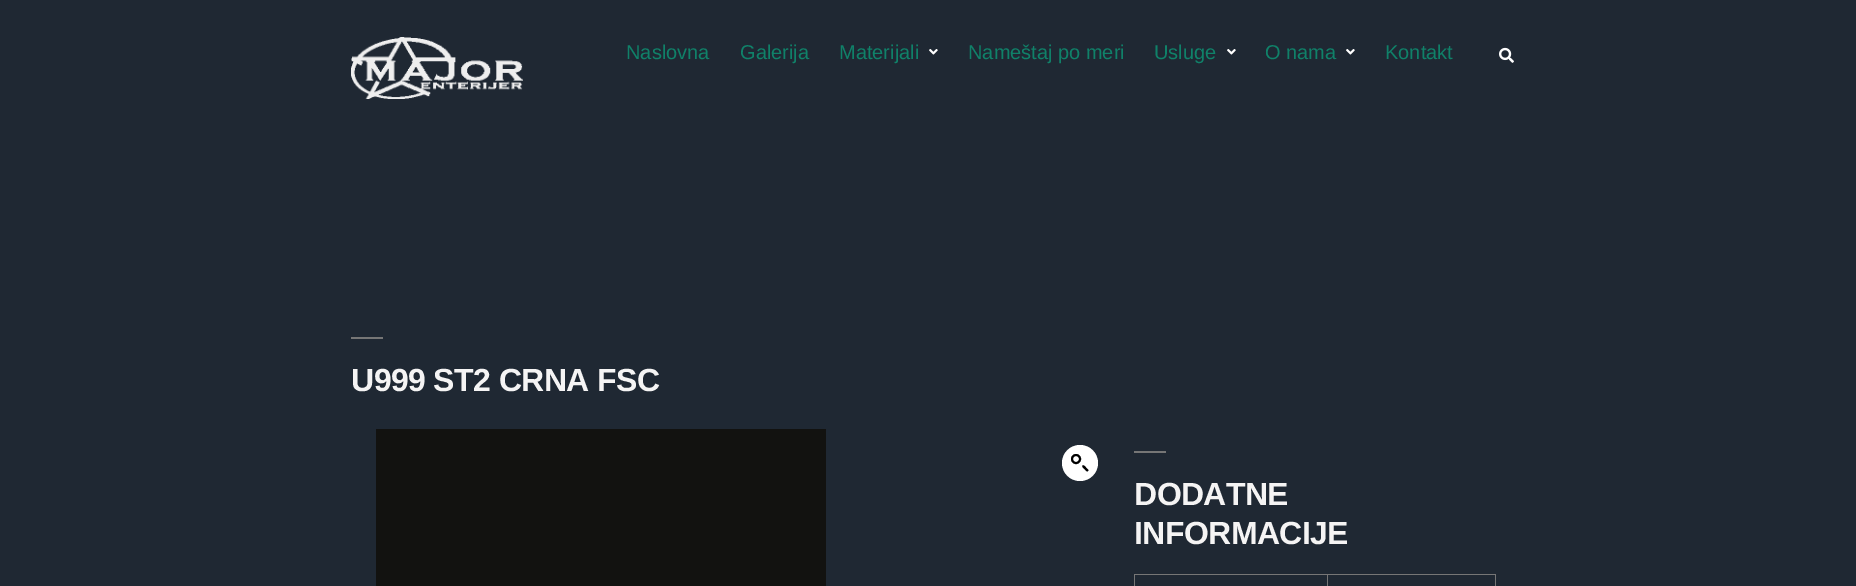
%!PS
<< /PageSize [1856 586] >> setpagedevice
/rgb { 3 { 255 div 3 1 roll } repeat setrgbcolor } def
/font { [ exch dup neg 0 0 3 -1 roll 0 0 ] selectfont } def
/circle { newpath 0 360 arc closepath } def
/picture { 5 dict begin { /h /w /y /x /name } { exch def } forall
  gsave x y translate w h scale
  w h 8 [w 0 0 h 0 0] name (r) file false 3 colorimage grestore end } def
0 586 translate 1 -1 scale
4 setmiterlimit
31 40 51 rgb
0 0 1856 586 rectfill
(img/1.rgb) 351 37 172 62 picture
(img/2.rgb) 929 49 9 6 picture
(img/2.rgb) 1227 49 9 6 picture
(img/2.rgb) 1346 49 9 6 picture
(img/3.rgb) 1499 47 15 16 picture
118 118 118 rgb
351 337 32 2 rectfill
18 18 16 rgb
376 429 450 157 rectfill
255 255 255 rgb
1080 463 18 circle fill
0 0 0 rgb
2 setlinewidth
1076 459 4 circle stroke
1082.5 465.5 moveto 1083.5 464.5 1085.5 467 1086 467.5 curveto 1086.5 468.5 1089.5 470 1088 471 curveto 1087 472.5 1085 469.5 1084.5 469 curveto 1084 468.5 1081.5 467 1082.5 465.5 curveto closepath fill
[
  [1134 451 32 2 118 118 118]
  [1327 574 169 1 118 118 118]
  [1327 574 1 12 118 118 118]
  [1134 574 194 1 118 118 118]
  [1134 574 1 12 118 118 118]
  [1495 574 1 12 118 118 118]
] { aload pop rgb rectfill } forall
/LiberationSans-Regular 20 font
16 129 105 rgb
[
  [(Naslovna) 626 59]
  [(Galerija) 740 59]
  [(Materijali) 839 59]
  [(Nameštaj po meri) 968 59]
  [(Usluge) 1154 59]
  [(O nama) 1265 59]
  [(Kontakt) 1385 59]
] { aload pop moveto show } forall
/LiberationSans-Bold 32 font
245 244 244 rgb
351 391 moveto -0.6 0 (U999 ST2 CRNA FSC) ashow
1134 505 moveto -0.6 0 (DODATNE) ashow
1134 544 moveto -0.6 0 (INFORMACIJE) ashow
showpage
